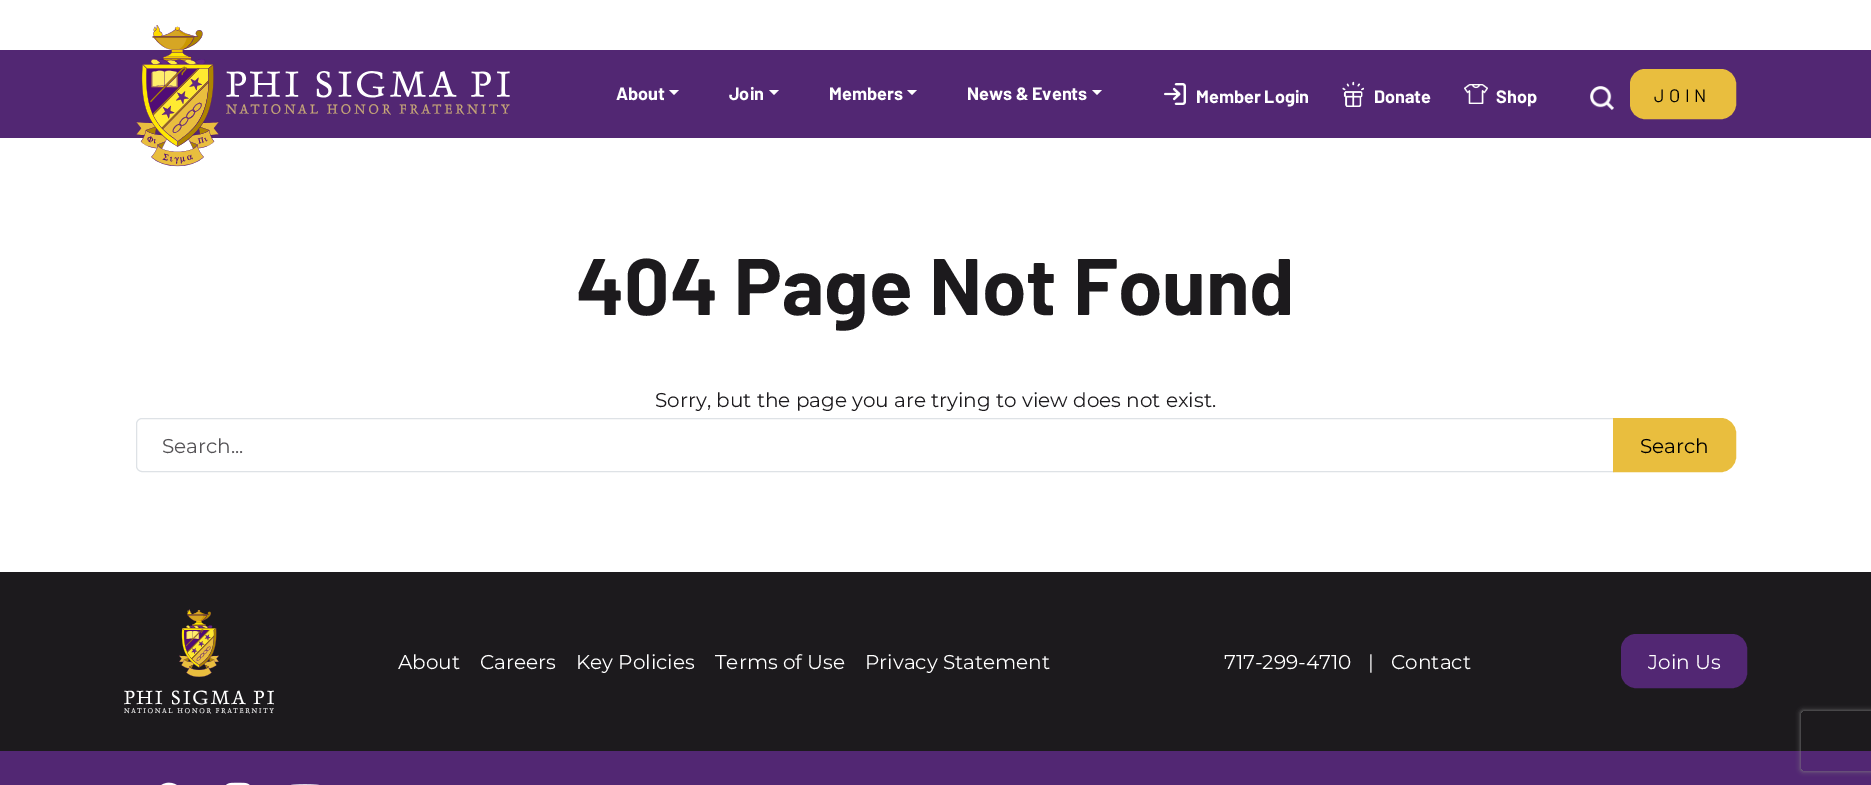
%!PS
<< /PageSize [1871 785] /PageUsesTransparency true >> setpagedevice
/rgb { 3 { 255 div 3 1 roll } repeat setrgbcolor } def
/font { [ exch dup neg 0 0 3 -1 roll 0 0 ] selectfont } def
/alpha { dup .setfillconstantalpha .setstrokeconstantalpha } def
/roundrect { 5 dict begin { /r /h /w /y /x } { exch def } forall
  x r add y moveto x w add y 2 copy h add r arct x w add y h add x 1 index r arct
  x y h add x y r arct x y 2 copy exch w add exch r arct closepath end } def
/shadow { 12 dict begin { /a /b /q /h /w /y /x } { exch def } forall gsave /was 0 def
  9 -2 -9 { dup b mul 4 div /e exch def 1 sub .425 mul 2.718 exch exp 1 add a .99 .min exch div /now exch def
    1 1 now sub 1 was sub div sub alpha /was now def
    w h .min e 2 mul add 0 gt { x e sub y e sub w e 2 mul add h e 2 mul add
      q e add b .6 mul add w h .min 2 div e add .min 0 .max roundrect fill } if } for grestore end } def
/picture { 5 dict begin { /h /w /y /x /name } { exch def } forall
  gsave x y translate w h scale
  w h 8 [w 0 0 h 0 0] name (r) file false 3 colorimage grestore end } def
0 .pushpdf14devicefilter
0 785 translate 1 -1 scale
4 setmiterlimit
255 255 255 rgb
0 0 1871 785 rectfill
82 39 115 rgb
0 50 1871 88 rectfill
(img/1.rgb) 136 25 374 142 picture
255 255 255 rgb
669 90 moveto 679 90 lineto 674 95 lineto closepath fill
769 90 moveto 779 90 lineto 774 95 lineto closepath fill
907 90 moveto 917 90 lineto 912 95 lineto closepath fill
1092 90 moveto 1102 90 lineto 1097 95 lineto closepath fill
(img/2.rgb) 1164 83 22 22 picture
(img/3.rgb) 1342 81 22 26 picture
(img/4.rgb) 1464 84 24 20 picture
(img/5.rgb) 1590 86 24 24 picture
233 190 62 rgb
1631 70 104 48 14 roundrect gsave fill grestore
2 setlinewidth
stroke
222 226 230 rgb
1 setlinewidth
142 418.5 moveto 1613.5 418.5 lineto 1613.5 471.5 lineto 142 471.5 lineto 139 471.5 136.5 469 136.5 466 curveto 136.5 424 lineto 136.5 421 139 418.5 142 418.5 curveto closepath stroke
233 190 62 rgb
1614 419 moveto 1721 419 lineto 1728.5 419 1735 425.5 1735 433 curveto 1735 457 lineto 1735 464.5 1728.5 471 1721 471 curveto 1614 471 lineto closepath gsave fill grestore
2 setlinewidth
stroke
28 26 29 rgb
0 572 1871 179 rectfill
(img/6.rgb) 124 609 150 105 picture
82 39 115 rgb
1622 635 124 52 14 roundrect gsave fill grestore
stroke
0 751 1871 34 rectfill
(img/7.rgb) 161 782 16 3 picture
(img/8.rgb) 226 782 24 3 picture
(img/9.rgb) 291 784 29 1 picture
gsave
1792 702 moveto 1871 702 lineto 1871 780 lineto 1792 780 lineto closepath 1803 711 moveto 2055 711 lineto 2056 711 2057 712 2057 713 curveto 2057 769 lineto 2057 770 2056 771 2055 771 curveto 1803 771 lineto 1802 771 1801 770 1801 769 curveto 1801 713 lineto 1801 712 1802 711 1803 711 curveto closepath eoclip newpath
128 128 128 rgb
1801 711 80 60 2 2.5 1 shadow
grestore
/Barlow-Bold 18 font
255 255 255 rgb
[
  [(About) 616 100]
  [(Join) 729 100]
  [(Members) 829 100]
  [(News & Events) 967 100]
  [(Member Login) 1196 103]
  [(Donate) 1374 103]
  [(Shop) 1496 103]
] { aload pop moveto show } forall
/Barlow-Regular 18 font
0 0 0 rgb
1654 102 moveto 4.5 0 (JOIN) ashow
/Barlow-Bold 80 font
28 26 29 rgb
576 315 moveto (404 Page Not Found) show
/Montserrat-Regular 20 font
655 407 moveto (Sorry, but the page you are trying to view does not exist.) show
85 83 86 rgb
162 453 moveto (Search...) show
0 0 0 rgb
1640 453 moveto (Search) show
255 255 255 rgb
[
  [(About) 398 669]
  [(Careers) 480 669]
  [(Key Policies) 576 669]
  [(Terms of Use) 715 669]
  [(Privacy Statement) 865 669]
  [(717-299-4710) 1224 669]
  [(|) 1368 669]
  [(Contact) 1391 669]
  [(Join Us) 1648 669]
] { aload pop moveto show } forall
.poppdf14devicefilter showpage
